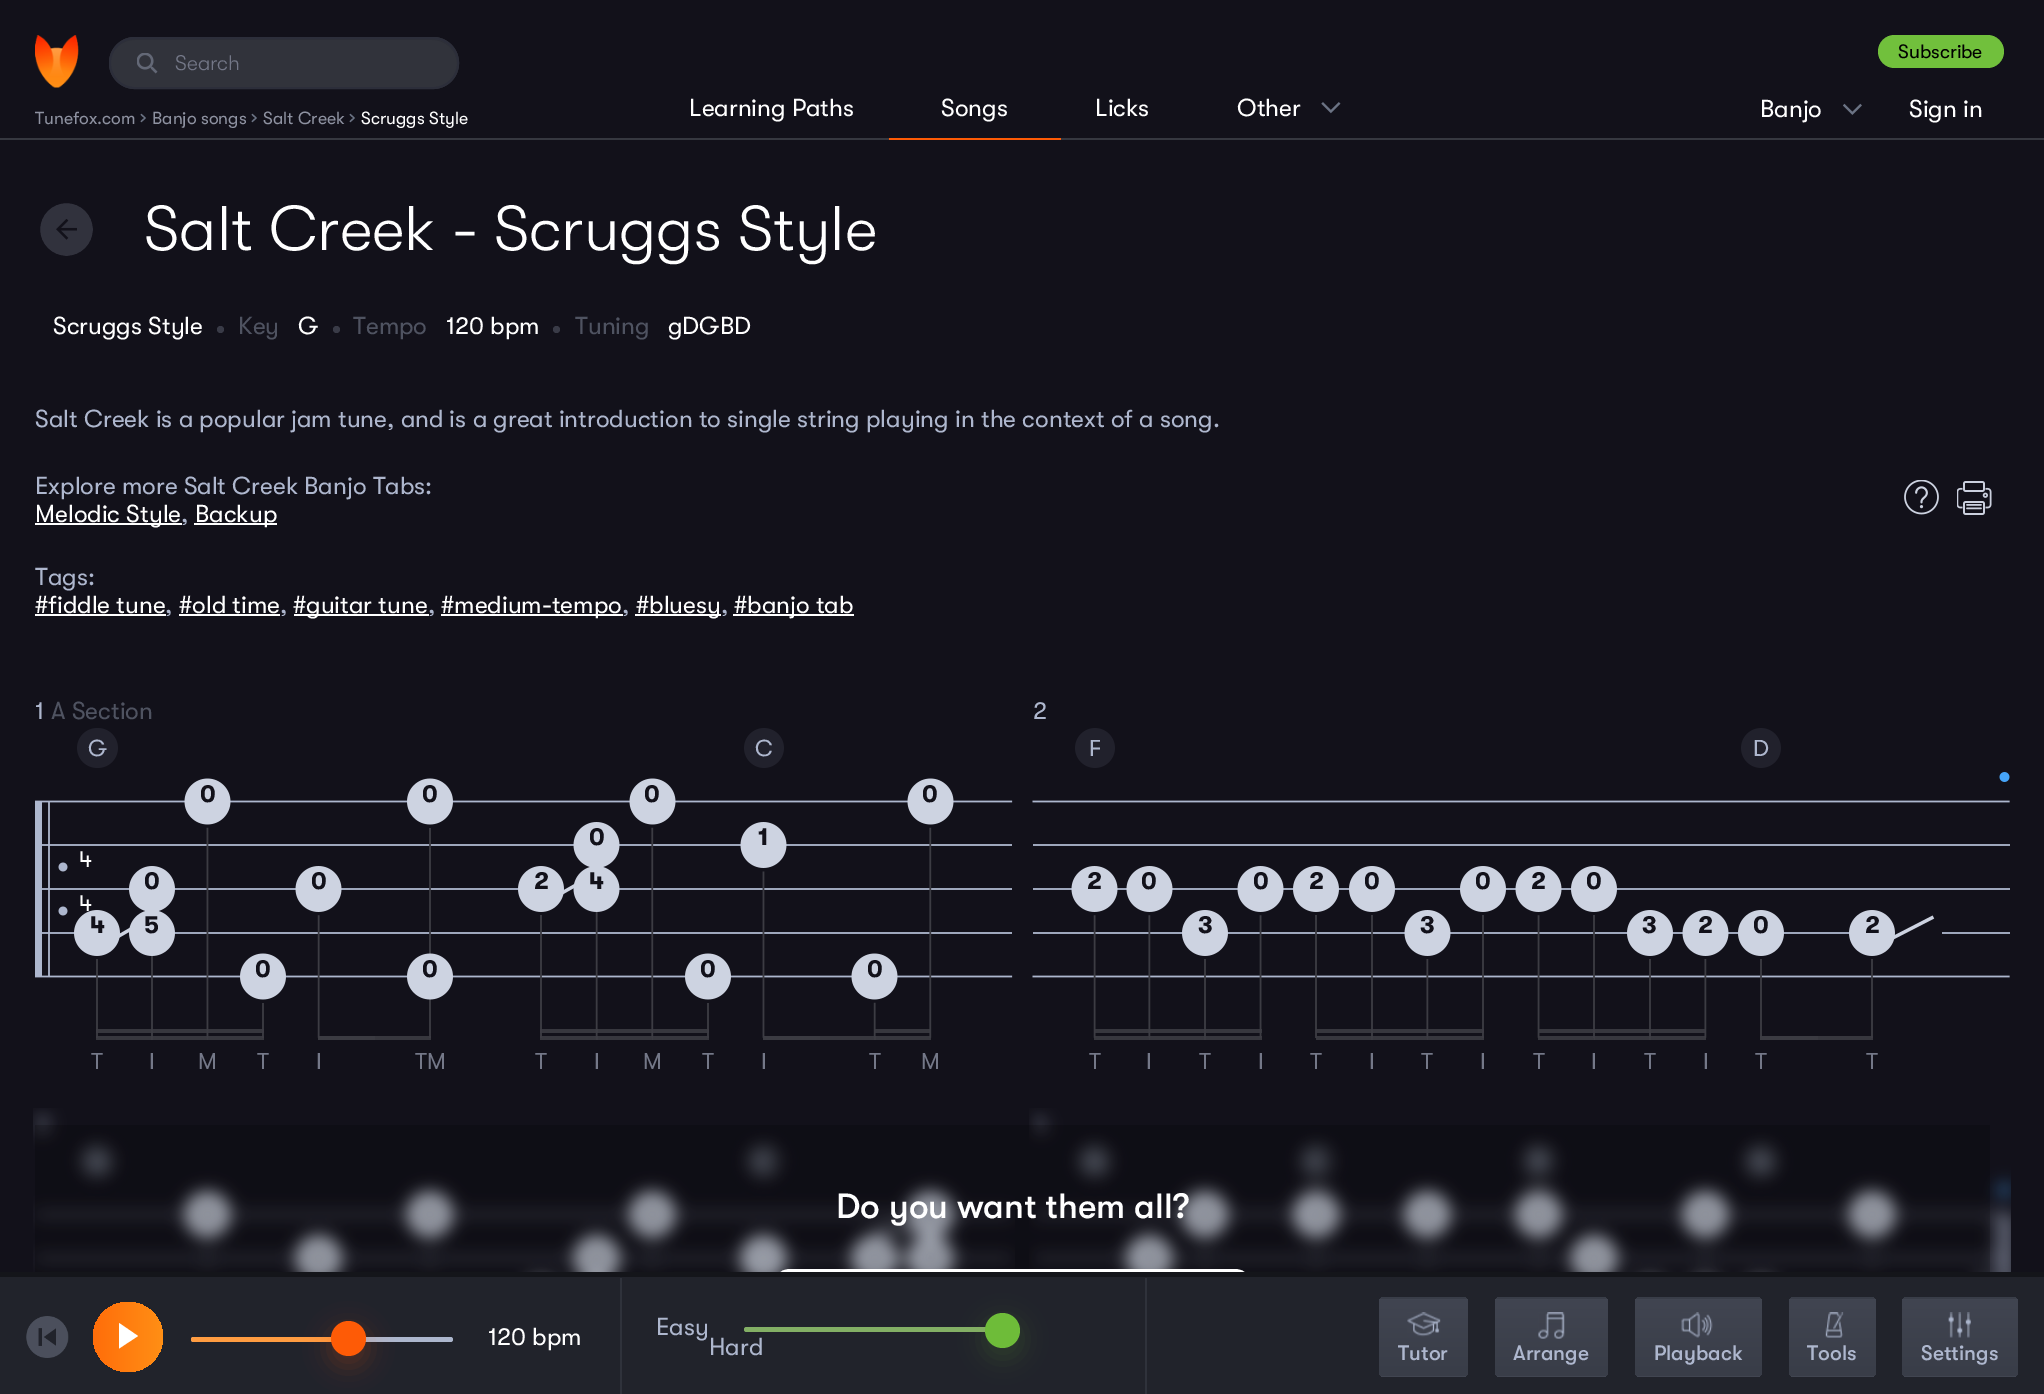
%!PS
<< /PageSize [2044 1394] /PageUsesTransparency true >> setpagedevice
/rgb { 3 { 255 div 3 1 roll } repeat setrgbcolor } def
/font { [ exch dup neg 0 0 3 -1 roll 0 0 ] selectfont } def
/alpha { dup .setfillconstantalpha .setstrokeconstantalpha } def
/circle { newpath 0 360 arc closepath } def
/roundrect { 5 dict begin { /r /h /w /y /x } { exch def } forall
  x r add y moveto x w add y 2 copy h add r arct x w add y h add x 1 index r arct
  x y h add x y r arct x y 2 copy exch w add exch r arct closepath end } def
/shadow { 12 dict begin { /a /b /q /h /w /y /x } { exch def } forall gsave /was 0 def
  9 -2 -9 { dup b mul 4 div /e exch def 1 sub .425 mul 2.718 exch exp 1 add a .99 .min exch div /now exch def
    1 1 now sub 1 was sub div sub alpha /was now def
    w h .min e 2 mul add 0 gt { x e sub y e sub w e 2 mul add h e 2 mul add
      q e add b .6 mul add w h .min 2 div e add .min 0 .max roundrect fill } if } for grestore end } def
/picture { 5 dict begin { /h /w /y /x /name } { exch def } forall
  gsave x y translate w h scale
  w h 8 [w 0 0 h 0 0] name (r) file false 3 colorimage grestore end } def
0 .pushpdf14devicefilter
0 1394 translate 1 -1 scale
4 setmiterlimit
18 17 26 rgb
0 0 2044 1394 rectfill
54 56 64 rgb
0 138 2044 2 rectfill
(img/1.rgb) 35 35 44 53 picture
49 51 59 rgb
109 37 350 52 26 roundrect fill
45 47 55 rgb
135 40 moveto 432 40 lineto 446 40 457 51 457 64 curveto 457 51 446 39 432 39 curveto 134 39 lineto 121 39 110 51 110 64 curveto 110 51 121 40 135 40 curveto closepath fill
44 46 58 rgb
2 setlinewidth
110 38 348 50 25 roundrect stroke
(img/2.rgb) 137 53 21 21 picture
254 91 6 rgb
889 138 172 2 rectfill
(img/3.rgb) 1321 102 20 12 picture
(img/4.rgb) 1843 103 19 12 picture
113 192 60 rgb
1878 35 126 33 16.5 roundrect fill
49 50 61 rgb
66.5 229.5 26.5 circle fill
(img/5.rgb) 56 219 21 21 picture
18 17 26 rgb
5 setlinewidth
66.5 229.5 29 circle stroke
57 59 71 rgb
220.5 329.5 3.5 circle fill
336.5 329.5 3.5 circle fill
556.5 329.5 3.5 circle fill
255 255 255 rgb
35 523 147 2 rectfill
194 523 83 2 rectfill
(img/6.rgb) 1904 480 35 35 picture
(img/7.rgb) 1957 481 35 34 picture
[
  [35 614 131 2 255 255 255]
  [179 614 101 2 255 255 255]
  [294 614 135 2 255 255 255]
  [441 614 182 2 255 255 255]
  [635 614 86 2 255 255 255]
  [733 614 121 2 255 255 255]
] { aload pop rgb rectfill } forall
(img/8.rgb) 35 728 978 312 picture
(img/9.rgb) 1032 728 978 312 picture
(img/10.rgb) 33 1108 982 164 picture
(img/11.rgb) 1029 1108 982 164 picture
0.2 alpha
0 0 0 rgb
35 1125 1955 147 rectfill
1 alpha
255 255 255 rgb
4 setlinewidth
774 1271 477 99 16 roundrect stroke
33 35 43 rgb
0 1277 2044 117 rectfill
20 21 26 rgb
0 1272 2044 5 rectfill
(img/12.rgb) 26 1316 43 42 picture
gsave 128 1337 35 circle clip newpath
<< /ShadingType 2 /ColorSpace /DeviceRGB /Coords [93 1337 163 1337] /Extend [true true] /Function << /FunctionType 2 /Domain [0 1] /C0 [1 0.427 0.039] /C1 [1 0.561 0.082] /N 1 >> >> shfill grestore
255 255 255 rgb
119 1323 moveto 138 1336 lineto 119 1348.5 lineto closepath eofill
173 183 206 rgb
191 1337 262 5 2.5 roundrect fill
255 156 65 rgb
191 1337 157 5 2.5 roundrect fill
254 91 6 rgb
329 1328 39 39 19.5 12 0.2 shadow
348.5 1338.5 17.5 circle fill
47 50 59 rgb
620 1278 2 116 rectfill
131 175 101 rgb
744 1327 259 5 2.5 roundrect fill
110 188 57 rgb
984 1320 38 38 19 12 0.15 shadow
1002.5 1330.5 17.5 circle fill
47 50 59 rgb
1145 1278 2 116 rectfill
gsave
1379 1297 89 80 5 roundrect clip newpath
gsave 1379 1297 moveto 1468 1297 lineto 1468 1299 lineto 1379 1299 lineto closepath clip newpath
<< /ShadingType 2 /ColorSpace /DeviceRGB /Coords [1424 1299 1424 1222] /Extend [true true] /Function << /FunctionType 2 /Domain [0 1] /C0 [0.224 0.239 0.282] /C1 [0.255 0.271 0.318] /N 1 >> >> shfill grestore
gsave 1379 1299 moveto 1468 1299 lineto 1468 1376 lineto 1379 1376 lineto closepath clip newpath
<< /ShadingType 2 /ColorSpace /DeviceRGB /Coords [1424 1376 1424 1299] /Extend [true true] /Function << /FunctionType 2 /Domain [0 1] /C0 [0.224 0.239 0.282] /C1 [0.255 0.271 0.318] /N 1 >> >> shfill grestore
gsave 1379 1376 moveto 1468 1376 lineto 1468 1377 lineto 1379 1377 lineto closepath clip newpath
<< /ShadingType 2 /ColorSpace /DeviceRGB /Coords [1424 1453 1424 1376] /Extend [true true] /Function << /FunctionType 2 /Domain [0 1] /C0 [0.224 0.239 0.282] /C1 [0.255 0.271 0.318] /N 1 >> >> shfill grestore
grestore
(img/13.rgb) 1407 1312 34 25 picture
gsave
1495 1297 113 80 5 roundrect clip newpath
gsave 1495 1297 moveto 1608 1297 lineto 1608 1299 lineto 1495 1299 lineto closepath clip newpath
<< /ShadingType 2 /ColorSpace /DeviceRGB /Coords [1551 1299 1551 1222] /Extend [true true] /Function << /FunctionType 2 /Domain [0 1] /C0 [0.224 0.239 0.282] /C1 [0.255 0.271 0.318] /N 1 >> >> shfill grestore
gsave 1495 1299 moveto 1608 1299 lineto 1608 1376 lineto 1495 1376 lineto closepath clip newpath
<< /ShadingType 2 /ColorSpace /DeviceRGB /Coords [1551 1376 1551 1299] /Extend [true true] /Function << /FunctionType 2 /Domain [0 1] /C0 [0.224 0.239 0.282] /C1 [0.255 0.271 0.318] /N 1 >> >> shfill grestore
gsave 1495 1376 moveto 1608 1376 lineto 1608 1377 lineto 1495 1377 lineto closepath clip newpath
<< /ShadingType 2 /ColorSpace /DeviceRGB /Coords [1551 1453 1551 1376] /Extend [true true] /Function << /FunctionType 2 /Domain [0 1] /C0 [0.224 0.239 0.282] /C1 [0.255 0.271 0.318] /N 1 >> >> shfill grestore
grestore
(img/14.rgb) 1538 1312 27 27 picture
gsave
1635 1297 127 80 5 roundrect clip newpath
gsave 1635 1297 moveto 1762 1297 lineto 1762 1299 lineto 1635 1299 lineto closepath clip newpath
<< /ShadingType 2 /ColorSpace /DeviceRGB /Coords [1698 1299 1698 1222] /Extend [true true] /Function << /FunctionType 2 /Domain [0 1] /C0 [0.224 0.239 0.282] /C1 [0.255 0.271 0.318] /N 1 >> >> shfill grestore
gsave 1635 1299 moveto 1762 1299 lineto 1762 1376 lineto 1635 1376 lineto closepath clip newpath
<< /ShadingType 2 /ColorSpace /DeviceRGB /Coords [1698 1376 1698 1299] /Extend [true true] /Function << /FunctionType 2 /Domain [0 1] /C0 [0.224 0.239 0.282] /C1 [0.255 0.271 0.318] /N 1 >> >> shfill grestore
gsave 1635 1376 moveto 1762 1376 lineto 1762 1377 lineto 1635 1377 lineto closepath clip newpath
<< /ShadingType 2 /ColorSpace /DeviceRGB /Coords [1698 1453 1698 1376] /Extend [true true] /Function << /FunctionType 2 /Domain [0 1] /C0 [0.224 0.239 0.282] /C1 [0.255 0.271 0.318] /N 1 >> >> shfill grestore
grestore
(img/15.rgb) 1681 1312 32 26 picture
gsave
1789 1297 87 80 5 roundrect clip newpath
gsave 1789 1297 moveto 1876 1297 lineto 1876 1299 lineto 1789 1299 lineto closepath clip newpath
<< /ShadingType 2 /ColorSpace /DeviceRGB /Coords [1832 1299 1832 1222] /Extend [true true] /Function << /FunctionType 2 /Domain [0 1] /C0 [0.224 0.239 0.282] /C1 [0.255 0.271 0.318] /N 1 >> >> shfill grestore
gsave 1789 1299 moveto 1876 1299 lineto 1876 1376 lineto 1789 1376 lineto closepath clip newpath
<< /ShadingType 2 /ColorSpace /DeviceRGB /Coords [1832 1376 1832 1299] /Extend [true true] /Function << /FunctionType 2 /Domain [0 1] /C0 [0.224 0.239 0.282] /C1 [0.255 0.271 0.318] /N 1 >> >> shfill grestore
gsave 1789 1376 moveto 1876 1376 lineto 1876 1377 lineto 1789 1377 lineto closepath clip newpath
<< /ShadingType 2 /ColorSpace /DeviceRGB /Coords [1832 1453 1832 1376] /Extend [true true] /Function << /FunctionType 2 /Domain [0 1] /C0 [0.224 0.239 0.282] /C1 [0.255 0.271 0.318] /N 1 >> >> shfill grestore
grestore
(img/16.rgb) 1825 1312 19 26 picture
gsave
1902 1297 116 80 5 roundrect clip newpath
gsave 1902 1297 moveto 2018 1297 lineto 2018 1299 lineto 1902 1299 lineto closepath clip newpath
<< /ShadingType 2 /ColorSpace /DeviceRGB /Coords [1960 1299 1960 1222] /Extend [true true] /Function << /FunctionType 2 /Domain [0 1] /C0 [0.224 0.239 0.282] /C1 [0.255 0.271 0.318] /N 1 >> >> shfill grestore
gsave 1902 1299 moveto 2018 1299 lineto 2018 1376 lineto 1902 1376 lineto closepath clip newpath
<< /ShadingType 2 /ColorSpace /DeviceRGB /Coords [1960 1376 1960 1299] /Extend [true true] /Function << /FunctionType 2 /Domain [0 1] /C0 [0.224 0.239 0.282] /C1 [0.255 0.271 0.318] /N 1 >> >> shfill grestore
gsave 1902 1376 moveto 2018 1376 lineto 2018 1377 lineto 1902 1377 lineto closepath clip newpath
<< /ShadingType 2 /ColorSpace /DeviceRGB /Coords [1960 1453 1960 1376] /Extend [true true] /Function << /FunctionType 2 /Domain [0 1] /C0 [0.224 0.239 0.282] /C1 [0.255 0.271 0.318] /N 1 >> >> shfill grestore
grestore
(img/17.rgb) 1948 1312 23 26 picture
/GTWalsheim-Light 21 font
116 120 136 rgb
175 70 moveto (Search) show
/GTWalsheim-Regular 17.5 font
142 146 161 rgb
35 124 moveto (Tunefox.com) show
/GTWalsheim-Regular 23 font
107 115 132 rgb
140 124 moveto (›) show
/GTWalsheim-Regular 17.5 font
142 146 161 rgb
152 124 moveto (Banjo songs) show
/GTWalsheim-Regular 23 font
107 115 132 rgb
251 124 moveto (›) show
/GTWalsheim-Regular 17.5 font
142 146 161 rgb
263 124 moveto (Salt Creek) show
/GTWalsheim-Regular 23 font
107 115 132 rgb
349 124 moveto (›) show
/GTWalsheim-Regular 17.5 font
255 255 255 rgb
361 124 moveto (Scruggs Style) show
/GTWalsheim-Regular 24.5 font
[
  [(Learning Paths) 689 116]
  [(Songs) 941 116]
  [(Licks) 1095 116]
  [(Other) 1237 116]
  [(Banjo) 1760 117]
] { aload pop moveto show } forall
/GTWalsheim-Regular 19.25 font
0 0 0 rgb
1898 58 moveto (Subscribe) show
/GTWalsheim-Regular 24.5 font
255 255 255 rgb
1909 117 moveto (Sign in) show
/GTWalsheim-Light 63 font
144 250 moveto (Salt Creek - Scruggs Style) show
/GTWalsheim-Regular 24.5 font
53 334 moveto (Scruggs Style) show
79 83 97 rgb
238 334 moveto (Key) show
255 255 255 rgb
298 334 moveto (G) show
79 83 97 rgb
353 334 moveto (Tempo) show
255 255 255 rgb
446 334 moveto (120 bpm) show
79 83 97 rgb
575 334 moveto (Tuning) show
255 255 255 rgb
668 334 moveto (gDGBD) show
174 183 206 rgb
35 427 moveto (Salt Creek is a popular jam tune, and is a great introduction to single string playing in the context of a song.) show
35 494 moveto (Explore more Salt Creek Banjo Tabs:) show
255 255 255 rgb
35 522 moveto (Melodic Style) show
174 183 206 rgb
181 522 moveto (,) show
255 255 255 rgb
195 522 moveto (Backup) show
174 183 206 rgb
35 585 moveto (Tags:) show
255 255 255 rgb
35 613 moveto (#fiddle tune) show
174 183 206 rgb
165 613 moveto (,) show
255 255 255 rgb
179 613 moveto (#old time) show
174 183 206 rgb
280 613 moveto (,) show
255 255 255 rgb
293 613 moveto (#guitar tune) show
174 183 206 rgb
428 613 moveto (,) show
255 255 255 rgb
441 613 moveto (#medium-tempo) show
174 183 206 rgb
622 613 moveto (,) show
255 255 255 rgb
636 613 moveto (#bluesy) show
174 183 206 rgb
721 613 moveto (,) show
255 255 255 rgb
734 613 moveto (#banjo tab) show
174 183 206 rgb
35 719 moveto (1) show
79 83 97 rgb
51 719 moveto (A Section) show
/GTWalsheim-Regular 23 font
174 183 206 rgb
88 756 moveto (G) show
755 756 moveto (C) show
/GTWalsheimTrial-Bold 24.5 font
18 17 26 rgb
[
  [(0) 200 802]
  [(0) 422 802]
  [(0) 644 802]
  [(0) 922 802]
  [(0) 589 845]
  [(1) 758 845]
] { aload pop moveto show } forall
/GTWalsheim-Regular 23 font
255 255 255 rgb
79 867 moveto (4) show
/GTWalsheimTrial-Bold 24.5 font
18 17 26 rgb
[
  [(0) 144 889]
  [(0) 311 889]
  [(2) 534 889]
  [(4) 589 889]
] { aload pop moveto show } forall
/GTWalsheim-Regular 23 font
255 255 255 rgb
79 911 moveto (4) show
/GTWalsheimTrial-Bold 24.5 font
18 17 26 rgb
[
  [(4) 90 933]
  [(5) 144 933]
  [(0) 255 977]
  [(0) 422 977]
  [(0) 700 977]
  [(0) 867 977]
] { aload pop moveto show } forall
/GTWalsheim-Regular 23 font
116 120 136 rgb
[
  [(T) 91 1069]
  [(I) 149 1069]
  [(M) 198 1069]
  [(T) 257 1069]
  [(I) 316 1069]
  [(TM) 415 1069]
  [(T) 535 1069]
  [(I) 594 1069]
  [(M) 643 1069]
  [(T) 702 1069]
  [(I) 761 1069]
  [(T) 869 1069]
  [(M) 921 1069]
] { aload pop moveto show } forall
/GTWalsheim-Regular 24.5 font
174 183 206 rgb
1033 719 moveto (2) show
/GTWalsheim-Regular 23 font
1089 756 moveto (F) show
1753 756 moveto (D) show
/GTWalsheimTrial-Bold 24.5 font
18 17 26 rgb
[
  [(2) 1087 889]
  [(0) 1141 889]
  [(0) 1253 889]
  [(2) 1309 889]
  [(0) 1364 889]
  [(0) 1475 889]
  [(2) 1531 889]
  [(0) 1586 889]
  [(3) 1198 933]
  [(3) 1420 933]
  [(3) 1642 933]
  [(2) 1698 933]
  [(0) 1753 933]
  [(2) 1865 933]
] { aload pop moveto show } forall
/GTWalsheim-Regular 23 font
116 120 136 rgb
[
  [(T) 1089 1069]
  [(I) 1146 1069]
  [(T) 1199 1069]
  [(I) 1258 1069]
  [(T) 1310 1069]
  [(I) 1369 1069]
  [(T) 1421 1069]
  [(I) 1480 1069]
  [(T) 1533 1069]
  [(I) 1591 1069]
  [(T) 1644 1069]
  [(I) 1703 1069]
  [(T) 1755 1069]
  [(T) 1866 1069]
] { aload pop moveto show } forall
/GTWalsheim-Medium 35 font
255 255 255 rgb
836 1218 moveto (Do you want them all?) show
/GTWalsheim-Regular 24.5 font
488 1345 moveto (120 bpm) show
174 183 206 rgb
656 1335 moveto (Easy) show
709 1355 moveto (Hard) show
/GTWalsheim-Medium 21 font
[
  [(Tutor) 1398 1360]
  [(Arrange) 1513 1360]
  [(Playback) 1654 1360]
  [(Tools) 1807 1360]
  [(Settings) 1921 1360]
] { aload pop moveto show } forall
.poppdf14devicefilter showpage
